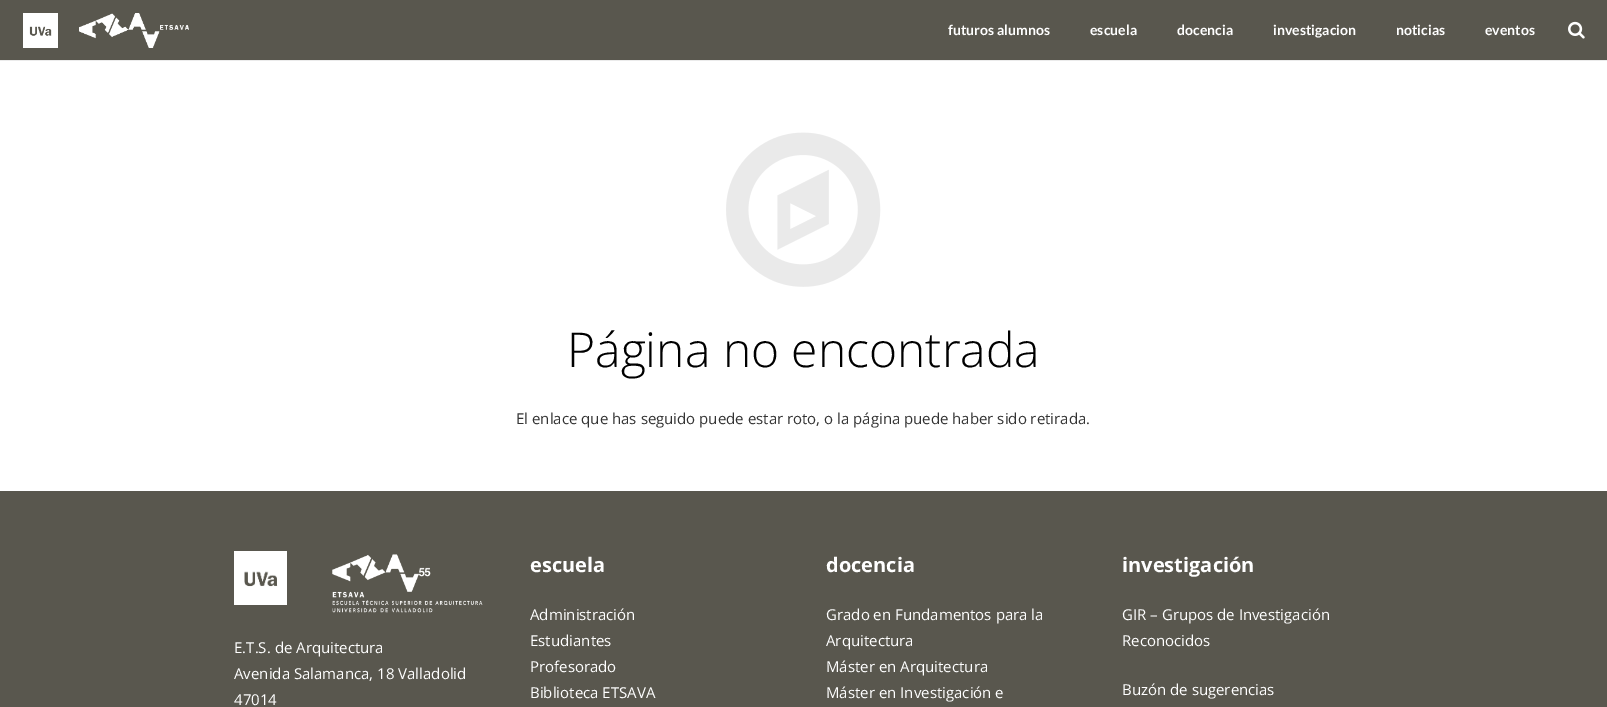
%!PS
<< /PageSize [1607 707] >> setpagedevice
/rgb { 3 { 255 div 3 1 roll } repeat setrgbcolor } def
/font { [ exch dup neg 0 0 3 -1 roll 0 0 ] selectfont } def
/picture { 5 dict begin { /h /w /y /x /name } { exch def } forall
  gsave x y translate w h scale
  w h 8 [w 0 0 h 0 0] name (r) file false 3 colorimage grestore end } def
0 707 translate 1 -1 scale
4 setmiterlimit
255 255 255 rgb
0 0 1607 707 rectfill
235 235 235 rgb
0 60 1607 1 rectfill
89 87 78 rgb
0 0 1607 60 rectfill
(img/1.rgb) 23 13 35 35 picture
(img/2.rgb) 79 13 110 35 picture
(img/3.rgb) 1568 21 17 18 picture
(img/4.rgb) 726 132 155 155 picture
0 491 1607 216 rectfill
(img/5.rgb) 234 551 53 54 picture
(img/6.rgb) 332 554 151 59 picture
/Lato-Bold 14 font
255 255 255 rgb
[
  [(futuros alumnos) 948 35]
  [(escuela) 1090 35]
  [(docencia) 1177 35]
  [(investigacion) 1273 35]
  [(noticias) 1396 35]
  [(eventos) 1485 35]
] { aload pop moveto show } forall
/OpenSans-Light 48 font
0 0 0 rgb
567 367 moveto (Página no encontrada) show
/OpenSans-Regular 15 font
51 51 51 rgb
516 424 moveto (El enlace que has seguido puede estar roto, o la página puede haber sido retirada.) show
255 255 255 rgb
[
  [(E.T.S. de Arquitectura) 234 653]
  [(Avenida Salamanca, 18 Valladolid) 234 679]
  [(47014) 234 705]
] { aload pop moveto show } forall
/OpenSans-Bold 20 font
530 572 moveto (escuela) show
/OpenSans-Regular 15 font
[
  [(Administración) 530 620]
  [(Estudiantes) 530 646]
  [(Profesorado) 530 672]
  [(Biblioteca ETSAVA) 530 698]
] { aload pop moveto show } forall
/OpenSans-Bold 20 font
826 572 moveto (docencia) show
/OpenSans-Regular 15 font
[
  [(Grado en Fundamentos para la) 826 620]
  [(Arquitectura) 826 646]
  [(Máster en Arquitectura) 826 672]
  [(Máster en Investigación e) 826 698]
] { aload pop moveto show } forall
/OpenSans-Bold 20 font
1122 572 moveto (investigación) show
/OpenSans-Regular 15 font
[
  [(GIR – Grupos de Investigación) 1122 620]
  [(Reconocidos) 1122 646]
  [(Buzón de sugerencias) 1122 695]
] { aload pop moveto show } forall
showpage
